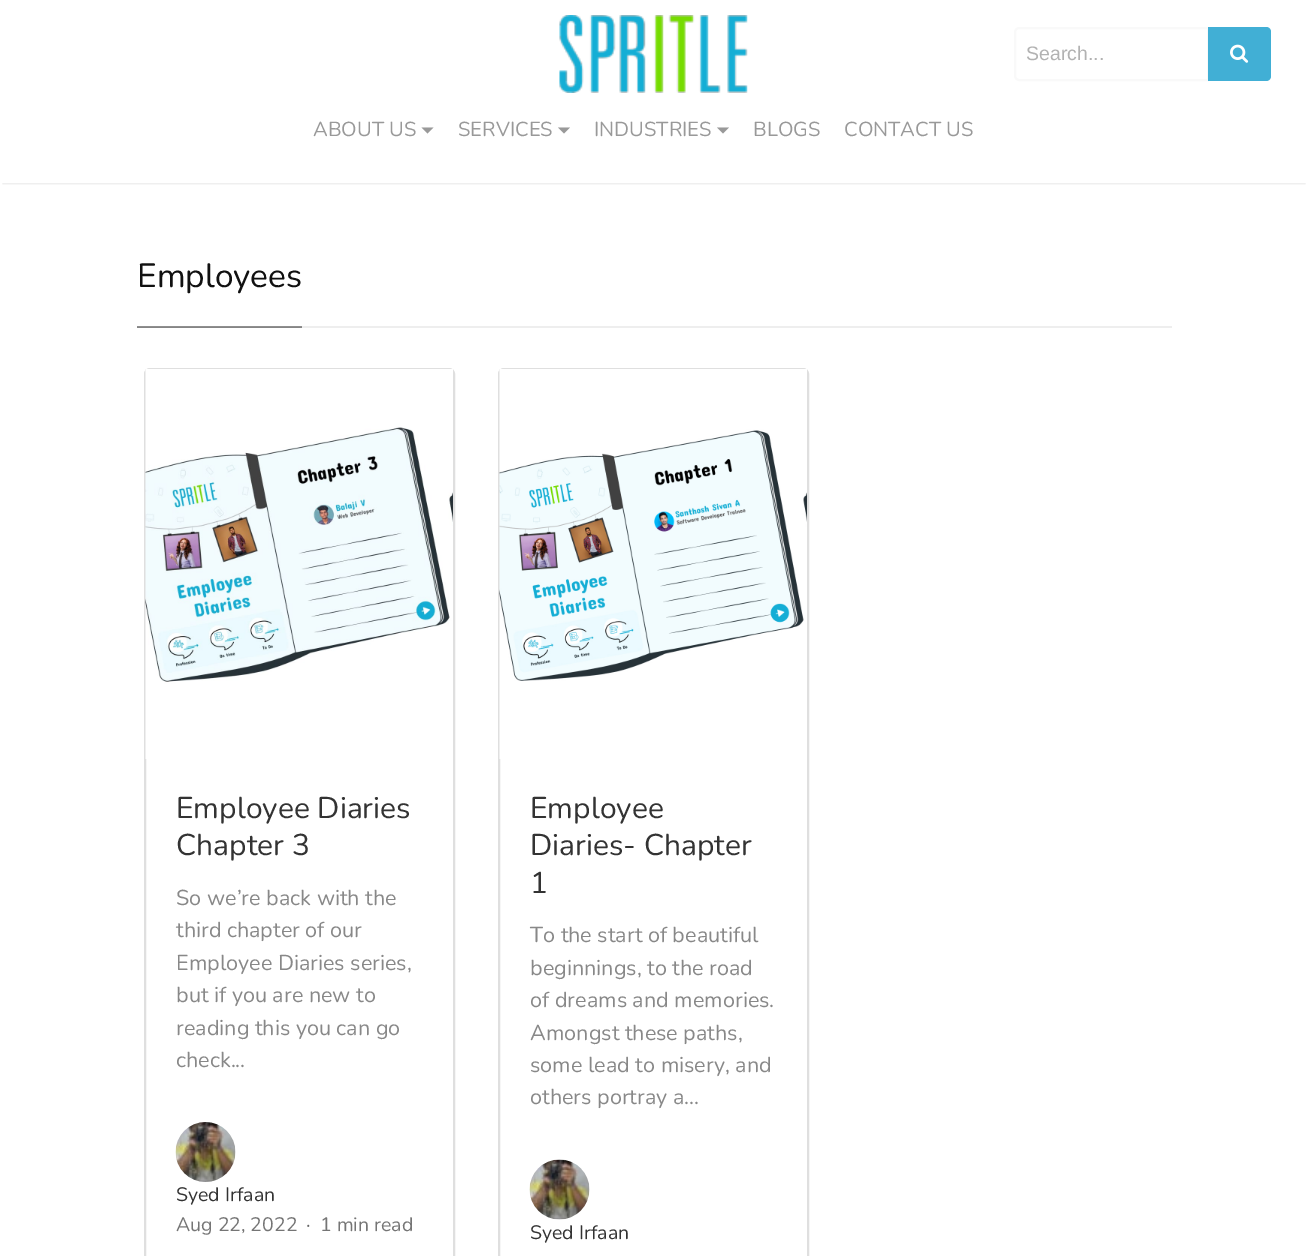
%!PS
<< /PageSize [1308 1256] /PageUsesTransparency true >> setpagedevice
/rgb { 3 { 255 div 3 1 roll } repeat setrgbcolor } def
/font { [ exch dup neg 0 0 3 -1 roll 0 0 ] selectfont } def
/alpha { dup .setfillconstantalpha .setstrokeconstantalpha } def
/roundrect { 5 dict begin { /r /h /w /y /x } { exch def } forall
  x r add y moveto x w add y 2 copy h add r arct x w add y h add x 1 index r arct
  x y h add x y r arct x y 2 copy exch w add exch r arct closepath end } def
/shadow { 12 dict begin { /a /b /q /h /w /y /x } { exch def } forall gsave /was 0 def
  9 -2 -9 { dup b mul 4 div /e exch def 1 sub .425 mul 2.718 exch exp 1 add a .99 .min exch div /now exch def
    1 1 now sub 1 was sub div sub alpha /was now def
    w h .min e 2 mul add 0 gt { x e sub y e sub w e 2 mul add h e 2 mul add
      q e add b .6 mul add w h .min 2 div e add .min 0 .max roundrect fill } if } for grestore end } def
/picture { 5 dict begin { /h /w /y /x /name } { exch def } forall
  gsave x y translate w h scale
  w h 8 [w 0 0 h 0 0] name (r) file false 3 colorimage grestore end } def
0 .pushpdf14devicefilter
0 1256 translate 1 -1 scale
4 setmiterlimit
255 255 255 rgb
0 0 1308 1256 rectfill
gsave
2 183 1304 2 rectclip
0 0 0 rgb
3 6 1302 177 0 1.5 0.15 shadow
grestore
(img/1.rgb) 559 15 189 78 picture
249 249 249 rgb
2 setlinewidth
1019 28 moveto 1208 28 lineto 1208 80 lineto 1019 80 lineto 1017 80 1015 78 1015 76 curveto 1015 32 lineto 1015 30 1017 28 1019 28 curveto closepath stroke
65 175 213 rgb
1208 27 moveto 1266 27 lineto 1269 27 1271 29 1271 32 curveto 1271 76 lineto 1271 79 1269 81 1266 81 curveto 1208 81 lineto closepath fill
(img/2.rgb) 1230 44 19 19 picture
153 153 153 rgb
421.5 127.5 moveto 433.5 127.5 lineto 427.5 133.5 lineto closepath fill
558 127.5 moveto 570 127.5 lineto 564 133.5 lineto closepath fill
717 127.5 moveto 729 127.5 lineto 723 133.5 lineto closepath fill
[
  [302 326 870 2 238 238 238]
  [137 327 165 1 133 133 133]
  [137 326 165 1 143 143 143]
] { aload pop rgb rectfill } forall
223 223 223 rgb
145 369 309 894 5 roundrect stroke
255 255 255 rgb
146 369 307 1 rectfill
(img/3.rgb) 145 370 308 389 picture
(img/4.rgb) 175 1122 61 60 picture
223 223 223 rgb
499 369 309 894 5 roundrect stroke
255 255 255 rgb
500 369 307 1 rectfill
(img/5.rgb) 499 370 308 389 picture
(img/6.rgb) 529 1159 61 61 picture
/LiberationSans-Regular 19.5 font
178 178 178 rgb
1026 60 moveto (Search...) show
/Nunito-ExtraLight 20.25 font
153 153 153 rgb
[
  [(ABOUT US) 313 136]
  [(SERVICES) 458 136]
  [(INDUSTRIES) 594 136]
  [(BLOGS) 753 136]
  [(CONTACT US) 844 136]
] { aload pop moveto show } forall
/Nunito-ExtraLight 33.5 font
17 17 17 rgb
137 287 moveto (Employees) show
/Nunito-ExtraLight 30 font
51 51 51 rgb
176 818 moveto (Employee Diaries) show
176 855 moveto (Chapter 3) show
/Nunito-ExtraLight 21.6 font
136 136 136 rgb
[
  [(So we’re back with the) 176 905]
  [(third chapter of our) 176 937]
  [(Employee Diaries series,) 176 970]
  [(but if you are new to) 176 1002]
  [(reading this you can go) 176 1035]
  [(check...) 176 1067]
] { aload pop moveto show } forall
/Nunito-ExtraLight 19.5 font
51 51 51 rgb
176 1201 moveto (Syed Irfaan) show
117 117 117 rgb
176 1231 moveto (Aug 22, 2022) show
102 102 102 rgb
306 1231 moveto (·) show
117 117 117 rgb
320 1231 moveto (1 min read) show
/Nunito-ExtraLight 30 font
51 51 51 rgb
[
  [(Employee) 530 818]
  [(Diaries- Chapter) 530 855]
  [(1) 530 893]
] { aload pop moveto show } forall
/Nunito-ExtraLight 21.6 font
136 136 136 rgb
[
  [(To the start of beautiful) 530 942]
  [(beginnings, to the road) 530 975]
  [(of dreams and memories.) 530 1007]
  [(Amongst these paths,) 530 1040]
  [(some lead to misery, and) 530 1072]
  [(others portray a...) 530 1104]
] { aload pop moveto show } forall
/Nunito-ExtraLight 19.5 font
51 51 51 rgb
530 1239 moveto (Syed Irfaan) show
.poppdf14devicefilter showpage
